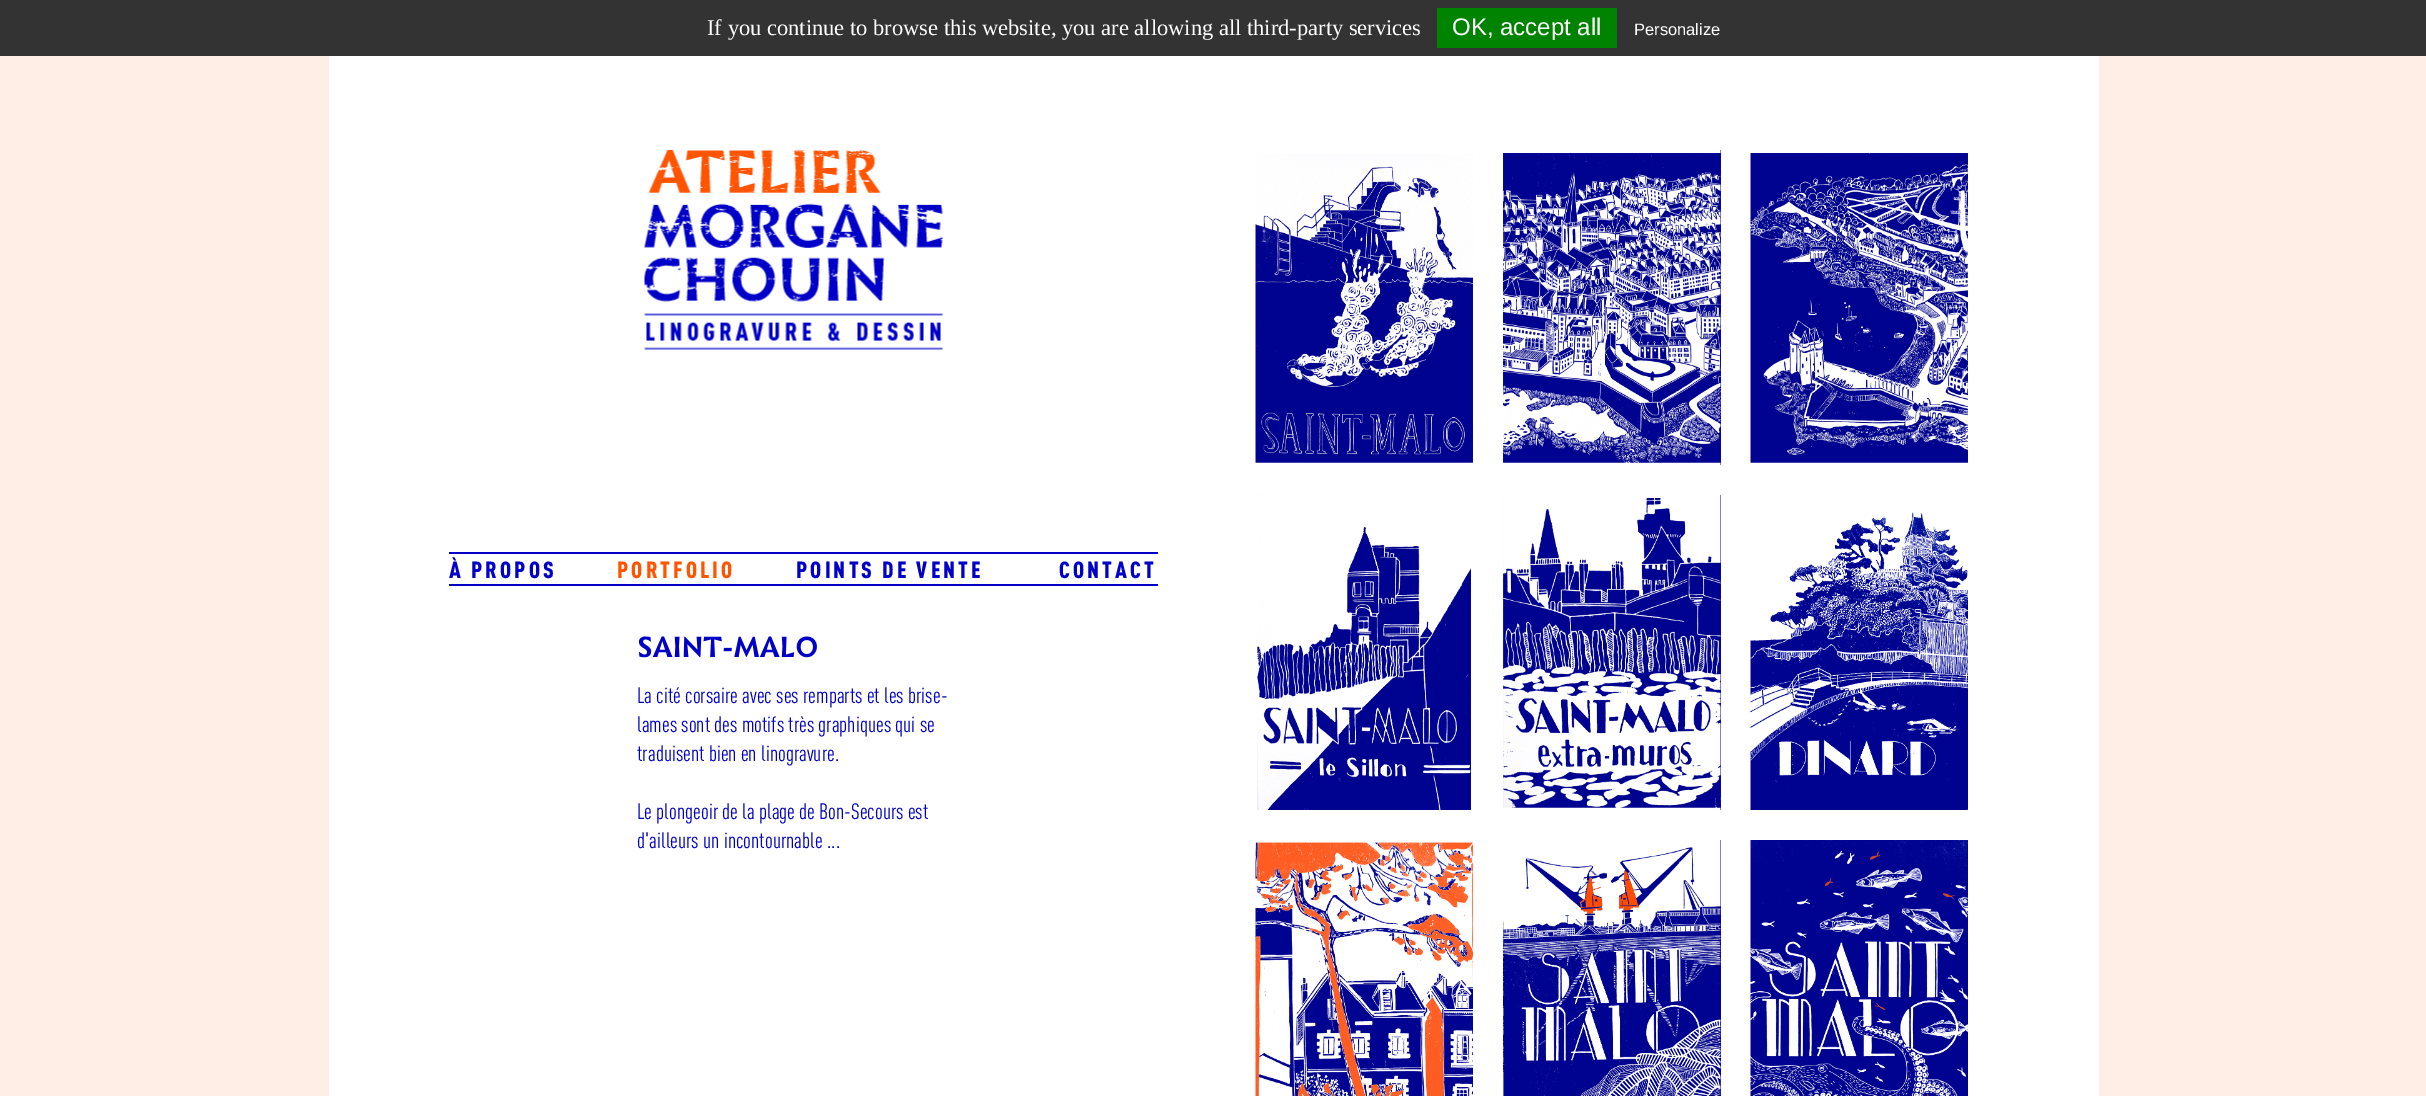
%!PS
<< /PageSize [2426 1096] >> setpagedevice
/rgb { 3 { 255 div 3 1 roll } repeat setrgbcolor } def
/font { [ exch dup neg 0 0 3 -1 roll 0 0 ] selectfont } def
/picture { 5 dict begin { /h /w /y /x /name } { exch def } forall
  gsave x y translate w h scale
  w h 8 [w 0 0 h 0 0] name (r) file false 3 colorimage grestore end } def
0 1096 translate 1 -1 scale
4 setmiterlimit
255 238 229 rgb
0 0 2426 1096 rectfill
[
  [0 0 2426 56 51 51 51]
  [1437 8 180 40 0 131 0]
  [329 56 1770 1040 255 255 255]
  [449 584 709 2 0 0 200]
] { aload pop rgb rectfill } forall
(img/1.rgb) 644 150 299 200 picture
449 552 709 2 rectfill
(img/2.rgb) 638 636 179 22 picture
(img/3.rgb) 1255 150 218 315 picture
1720 150 1 315 rectfill
(img/4.rgb) 1503 150 218 315 picture
(img/5.rgb) 1750 150 218 315 picture
(img/6.rgb) 1256 495 217 315 picture
1720 495 1 315 rectfill
(img/7.rgb) 1503 495 218 315 picture
(img/8.rgb) 1750 495 218 315 picture
(img/9.rgb) 1255 840 218 256 picture
1720 840 1 256 rectfill
(img/10.rgb) 1503 840 218 256 picture
(img/11.rgb) 1750 840 218 256 picture
/LiberationSerif-Regular 22.5 font
255 255 255 rgb
707 35 moveto (If you continue to browse this website, you are allowing all third-party services) show
/LiberationSans-Regular 24 font
1452 35 moveto (OK, accept all) show
/LiberationSans-Regular 16.5 font
1634 35 moveto (Personalize) show
/DIN-Black 23 font
0 0 200 rgb
449 578 moveto 3.1 0 (À PROPOS) ashow
255 85 0 rgb
617 578 moveto 3.1 0 (PORTFOLIO) ashow
0 0 200 rgb
796 578 moveto 3.1 0 (POINTS DE VENTE) ashow
1059 578 moveto 3.1 0 (CONTACT) ashow
/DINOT-Regular 22 font
[
  [(La cité corsaire avec ses remparts et les brise-) 637 703]
  [(lames sont des motifs très graphiques qui se) 637 732]
  [(traduisent bien en linogravure.) 637 761]
  [(Le plongeoir de la plage de Bon-Secours est) 637 819]
  [(d'ailleurs un incontournable ...) 637 848]
] { aload pop moveto show } forall
showpage
